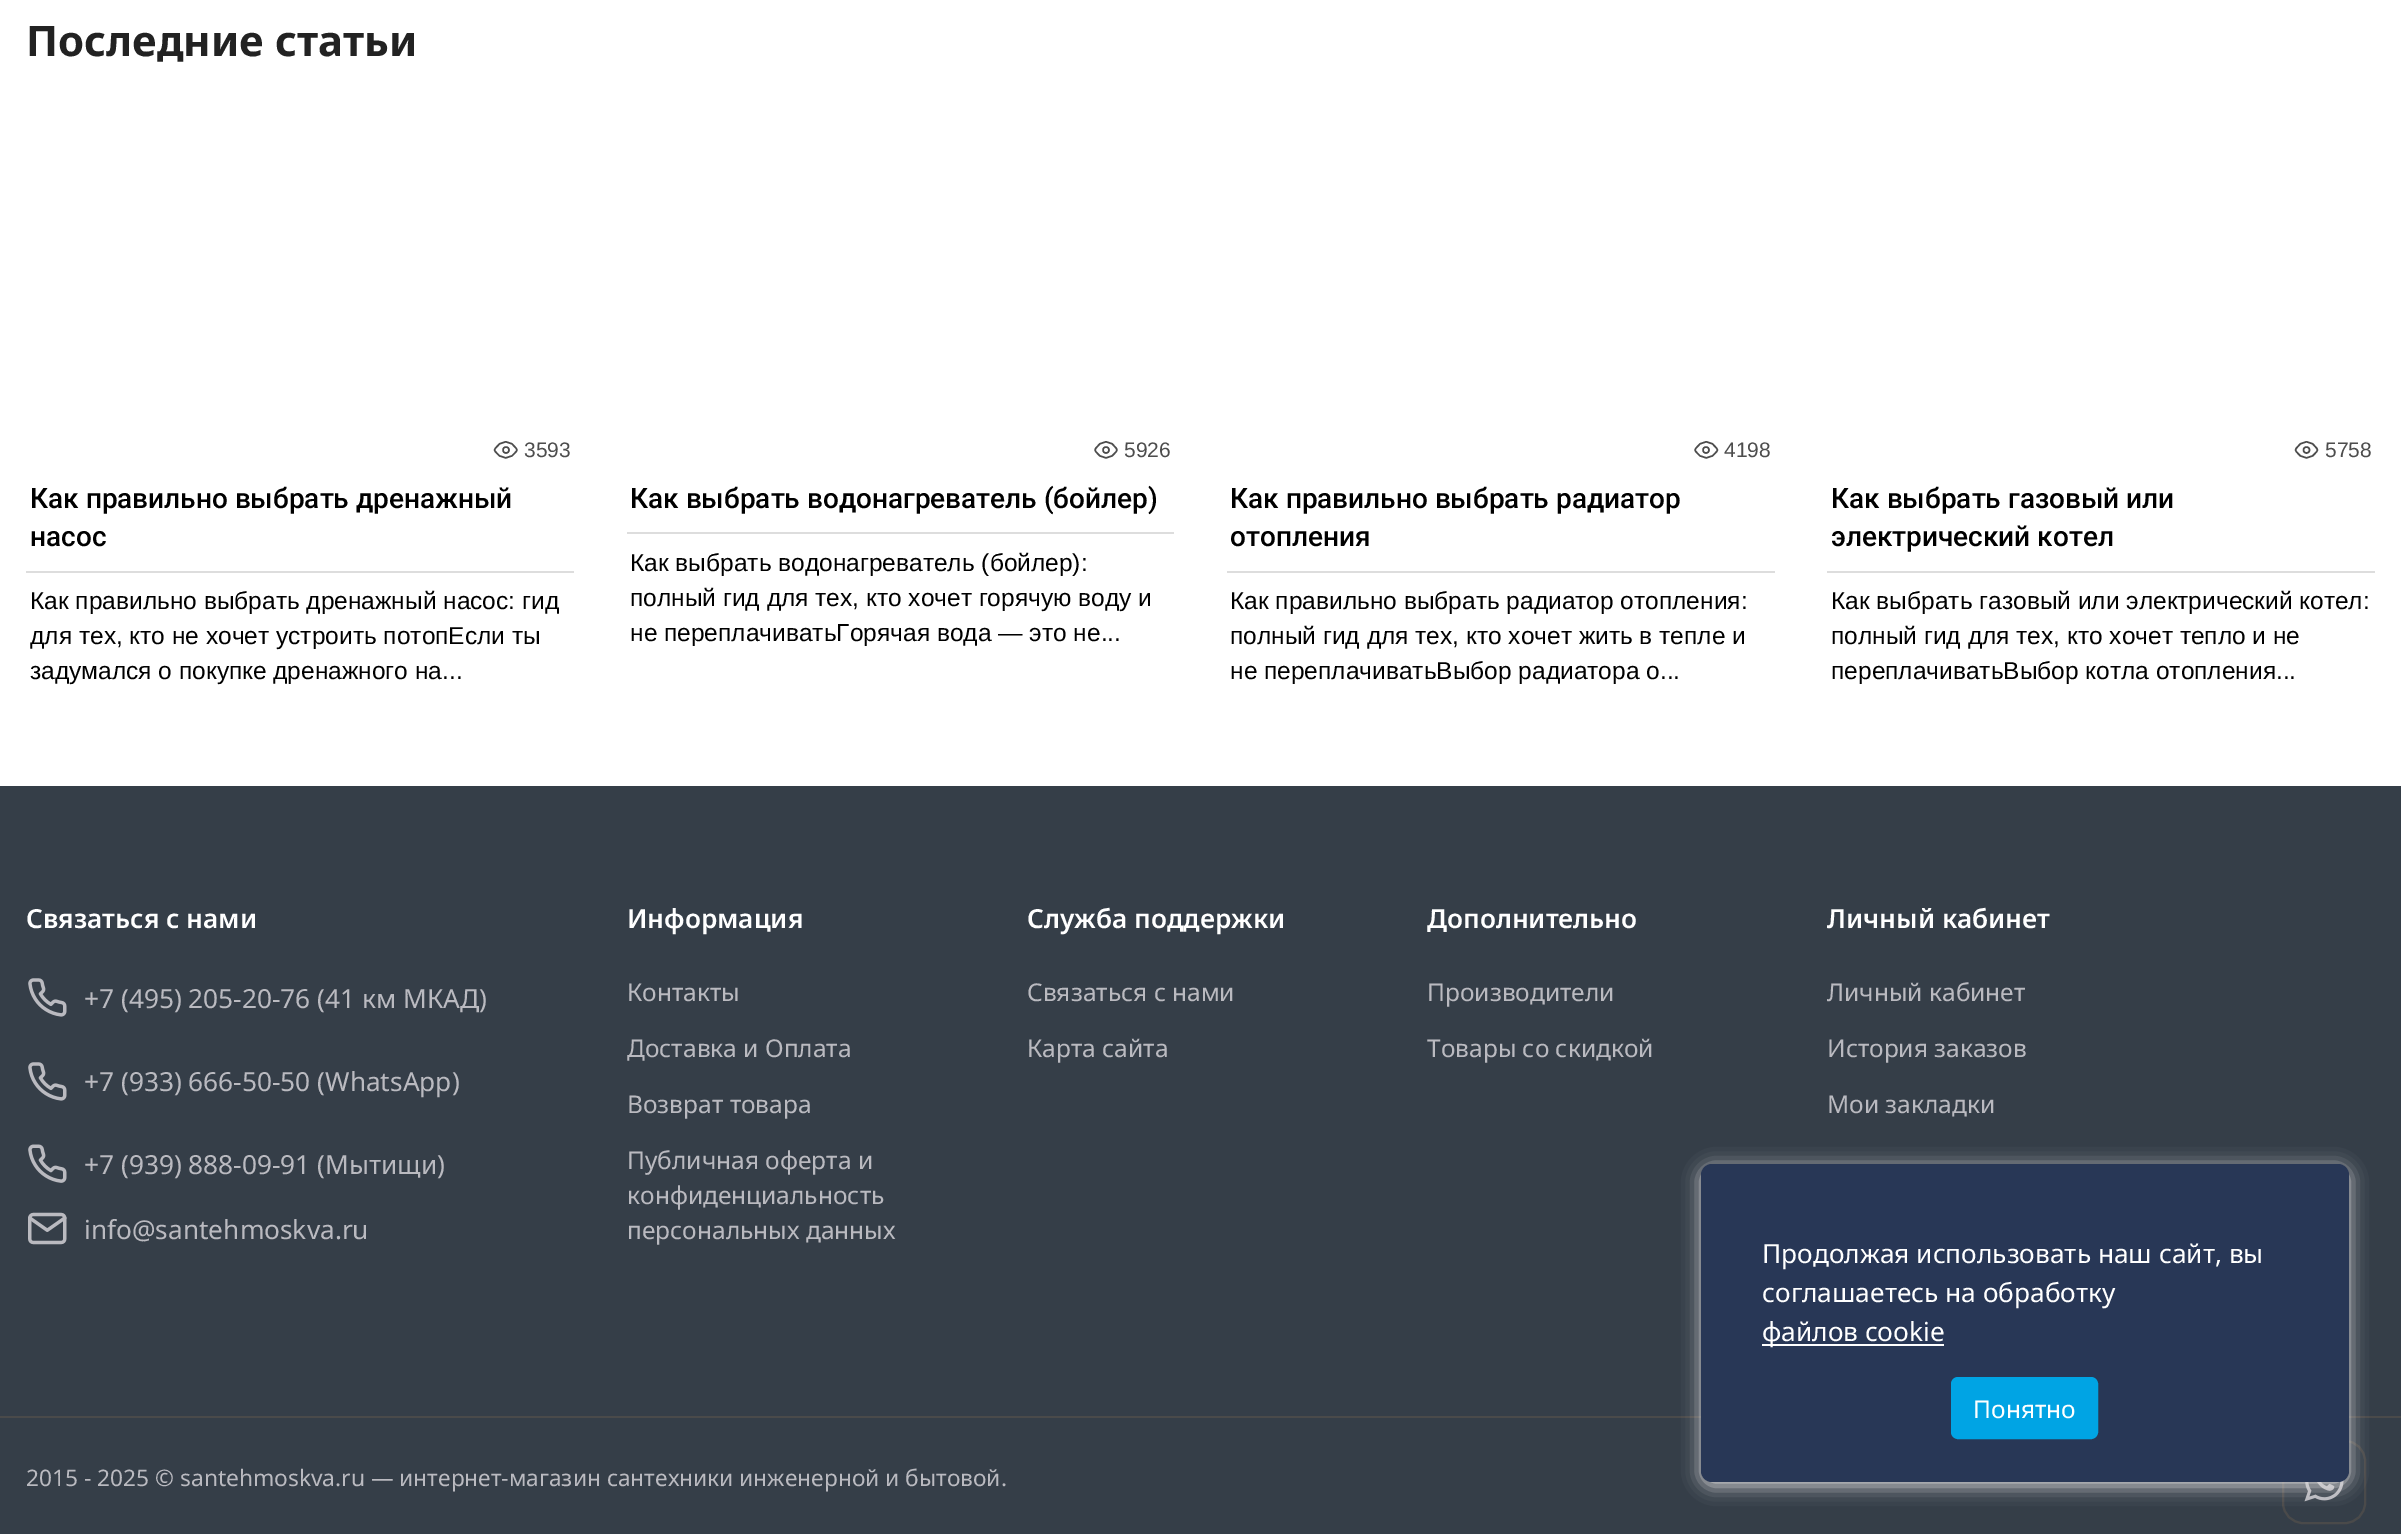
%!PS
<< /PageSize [2401 1534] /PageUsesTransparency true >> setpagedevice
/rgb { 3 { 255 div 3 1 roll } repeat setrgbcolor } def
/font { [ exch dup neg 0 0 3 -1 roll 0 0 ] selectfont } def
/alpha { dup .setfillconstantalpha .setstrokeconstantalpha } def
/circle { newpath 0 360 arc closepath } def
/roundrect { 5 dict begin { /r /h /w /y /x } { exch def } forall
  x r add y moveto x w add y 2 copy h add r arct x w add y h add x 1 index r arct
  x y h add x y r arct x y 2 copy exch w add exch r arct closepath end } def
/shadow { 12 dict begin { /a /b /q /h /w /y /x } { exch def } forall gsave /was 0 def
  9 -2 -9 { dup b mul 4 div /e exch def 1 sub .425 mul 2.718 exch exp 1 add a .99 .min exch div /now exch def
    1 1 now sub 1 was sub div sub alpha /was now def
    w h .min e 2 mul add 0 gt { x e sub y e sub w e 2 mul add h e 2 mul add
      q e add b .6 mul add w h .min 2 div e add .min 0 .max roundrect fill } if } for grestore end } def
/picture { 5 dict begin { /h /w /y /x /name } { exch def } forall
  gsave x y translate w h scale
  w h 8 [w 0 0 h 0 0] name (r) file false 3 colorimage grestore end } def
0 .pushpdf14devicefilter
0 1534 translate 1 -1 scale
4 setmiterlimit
255 255 255 rgb
0 0 2401 1534 rectfill
77 77 77 rgb
1.5 setlinewidth
1 setlinecap
1 setlinejoin
494.5 450 moveto 500 439 511.5 439 517 450 curveto 511.5 460.5 500 460.5 494.5 450 curveto closepath stroke
0 setlinecap
0 setlinejoin
506 450 3 circle stroke
221 221 221 rgb
26 571 548 2 rectfill
77 77 77 rgb
1 setlinecap
1 setlinejoin
1095 450 moveto 1100 439 1112 439 1117 450 curveto 1112 460.5 1100 460.5 1095 450 curveto closepath stroke
0 setlinecap
0 setlinejoin
1106 450 3 circle stroke
221 221 221 rgb
627 532 547 2 rectfill
77 77 77 rgb
1 setlinecap
1 setlinejoin
1695 450 moveto 1700.5 439 1712 439 1717.5 450 curveto 1712 460.5 1700.5 460.5 1695 450 curveto closepath stroke
0 setlinecap
0 setlinejoin
1706 450 3 circle stroke
221 221 221 rgb
1227 571 548 2 rectfill
77 77 77 rgb
1 setlinecap
1 setlinejoin
2295.5 450 moveto 2300.5 439 2312.5 439 2317.5 450 curveto 2312.5 460.5 2300.5 460.5 2295.5 450 curveto closepath stroke
0 setlinecap
0 setlinejoin
2306.5 450 3 circle stroke
221 221 221 rgb
1827 571 548 2 rectfill
53 62 72 rgb
0 786 2401 748 rectfill
(img/1.rgb) 28 978 39 39 picture
(img/1.rgb) 28 1062 39 39 picture
(img/2.rgb) 28 1144 39 39 picture
(img/3.rgb) 28 1212 39 33 picture
74 74 74 rgb
0 1416 2401 2 rectfill
2 setlinewidth
2283 1441 82 82 20 roundrect stroke
(img/4.rgb) 2304 1480 40 22 picture
219 217 217 rgb
1701 1167 648 319 11 9 1 shadow
40 55 86 rgb
1701 1164 648 318 11 roundrect fill
255 255 255 rgb
1762 1344 182 2 rectfill
0 164 228 rgb
1952 1378 145 60 6 roundrect gsave fill grestore
stroke
/NotoSans-Bold 42 font
34 34 34 rgb
26 56 moveto (Последние статьи) show
/LiberationSans-Regular 21 font
77 77 77 rgb
524 457 moveto (3593) show
/Roboto-Medium 28 font
0 0 0 rgb
30 508 moveto (Как правильно выбрать дренажный) show
30 546 moveto (насос) show
/LiberationSans-Regular 24.5 font
[
  [(Как правильно выбрать дренажный насос: гид) 30 609]
  [(для тех, кто не хочет устроить потопЕсли ты) 30 644]
  [(задумался о покупке дренажного на...) 30 679]
] { aload pop moveto show } forall
/LiberationSans-Regular 21 font
77 77 77 rgb
1124 457 moveto (5926) show
/Roboto-Medium 28 font
0 0 0 rgb
630 508 moveto (Как выбрать водонагреватель \(бойлер\)) show
/LiberationSans-Regular 24.5 font
[
  [(Как выбрать водонагреватель \(бойлер\):) 630 571]
  [(полный гид для тех, кто хочет горячую воду и) 630 606]
  [(не переплачиватьГорячая вода — это не...) 630 641]
] { aload pop moveto show } forall
/LiberationSans-Regular 21 font
77 77 77 rgb
1724 457 moveto (4198) show
/Roboto-Medium 28 font
0 0 0 rgb
1230 508 moveto (Как правильно выбрать радиатор) show
1230 546 moveto (отопления) show
/LiberationSans-Regular 24.5 font
[
  [(Как правильно выбрать радиатор отопления:) 1230 609]
  [(полный гид для тех, кто хочет жить в тепле и) 1230 644]
  [(не переплачиватьВыбор радиатора о...) 1230 679]
] { aload pop moveto show } forall
/LiberationSans-Regular 21 font
77 77 77 rgb
2325 457 moveto (5758) show
/Roboto-Medium 28 font
0 0 0 rgb
1831 508 moveto (Как выбрать газовый или) show
1831 546 moveto (электрический котел) show
/LiberationSans-Regular 24.5 font
[
  [(Как выбрать газовый или электрический котел:) 1831 609]
  [(полный гид для тех, кто хочет тепло и не) 1831 644]
  [(переплачиватьВыбор котла отопления...) 1831 679]
] { aload pop moveto show } forall
/NotoSans-SemiBold 26.25 font
255 255 255 rgb
26 928 moveto (Связаться с нами) show
/NotoSans-Regular 26.25 font
186 186 192 rgb
[
  [(+7 \(495\) 205-20-76 \(41 км МКАД\)) 84 1008]
  [(+7 \(933\) 666-50-50 \(WhatsApp\)) 84 1091]
  [(+7 \(939\) 888-09-91 \(Мытищи\)) 84 1174]
  [(info@santehmoskva.ru) 84 1239]
] { aload pop moveto show } forall
/NotoSans-SemiBold 26.25 font
255 255 255 rgb
627 928 moveto (Информация) show
/NotoSans-Regular 24.5 font
186 186 192 rgb
[
  [(Контакты) 627 1001]
  [(Доставка и Оплата) 627 1057]
  [(Возврат товара) 627 1113]
  [(Публичная оферта и) 627 1169]
  [(конфиденциальность) 627 1204]
  [(персональных данных) 627 1239]
] { aload pop moveto show } forall
/NotoSans-SemiBold 26.25 font
255 255 255 rgb
1027 928 moveto (Служба поддержки) show
/NotoSans-Regular 24.5 font
186 186 192 rgb
1027 1001 moveto (Связаться с нами) show
1027 1057 moveto (Карта сайта) show
/NotoSans-SemiBold 26.25 font
255 255 255 rgb
1427 928 moveto (Дополнительно) show
/NotoSans-Regular 24.5 font
186 186 192 rgb
1427 1001 moveto (Производители) show
1427 1057 moveto (Товары со скидкой) show
/NotoSans-SemiBold 26.25 font
255 255 255 rgb
1827 928 moveto (Личный кабинет) show
/NotoSans-Regular 24.5 font
186 186 192 rgb
[
  [(Личный кабинет) 1827 1001]
  [(История заказов) 1827 1057]
  [(Мои закладки) 1827 1113]
] { aload pop moveto show } forall
/NotoSans-Regular 22.75 font
26 1486 moveto (2015 - 2025 © santehmoskva.ru — интернет-магазин сантехники инженерной и бытовой.) show
/NotoSans-Regular 26.25 font
255 255 255 rgb
[
  [(Продолжая использовать наш сайт, вы) 1762 1263]
  [(соглашаетесь на обработку) 1762 1302]
  [(файлов cookie) 1762 1341]
] { aload pop moveto show } forall
/NotoSans-Regular 24.5 font
1973 1418 moveto (Понятно) show
.poppdf14devicefilter showpage
